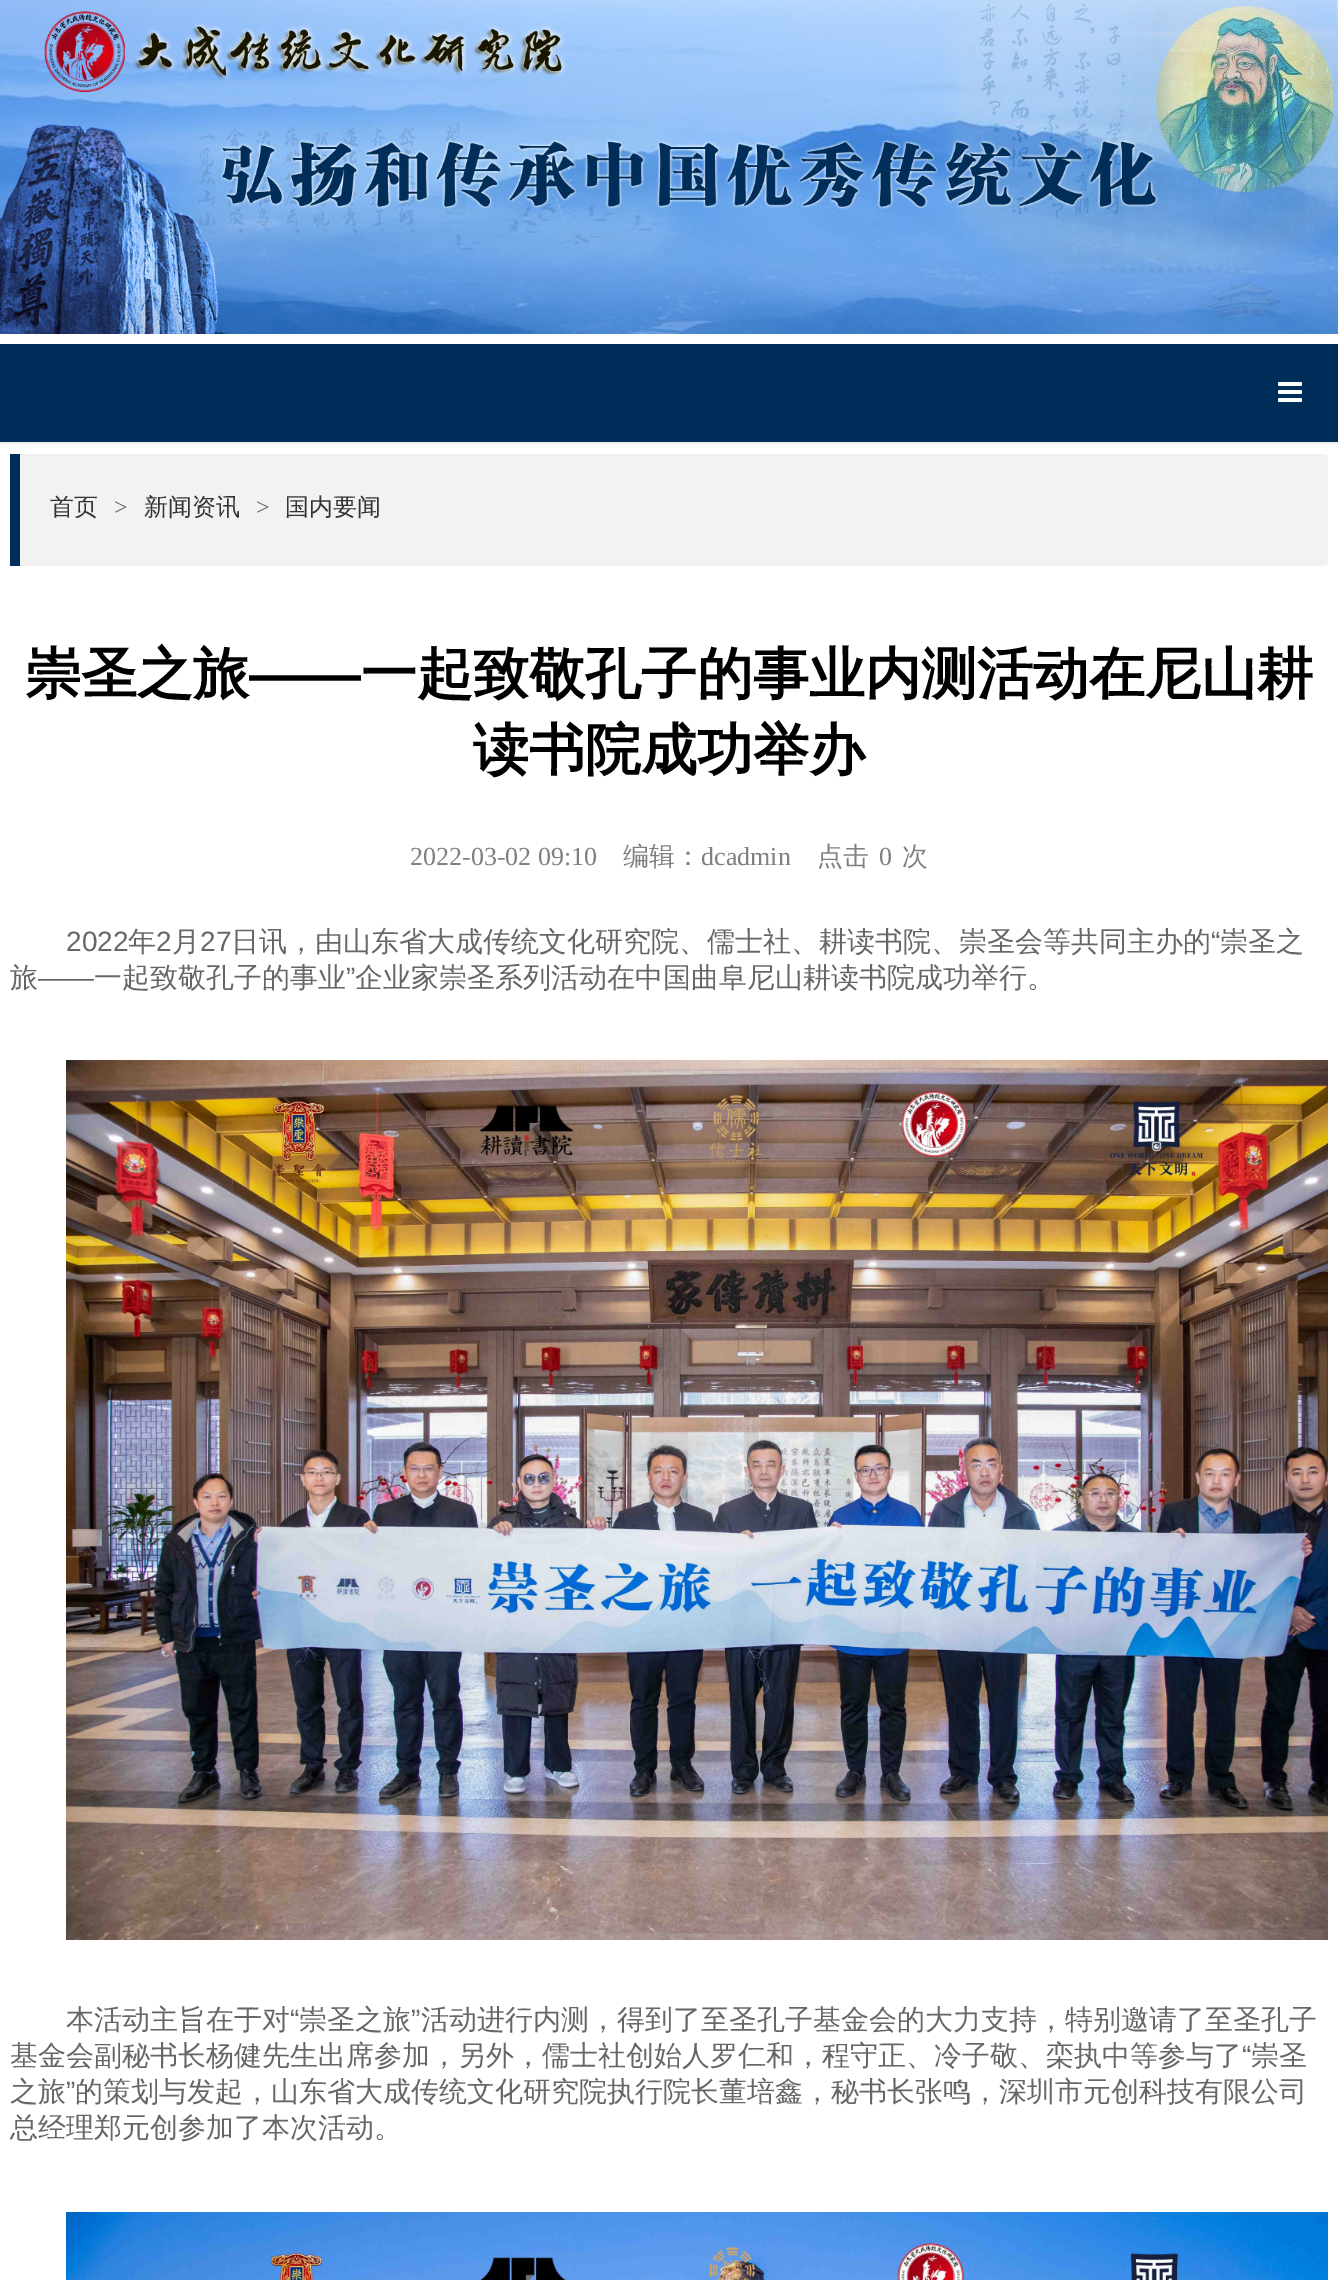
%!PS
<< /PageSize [1338 2280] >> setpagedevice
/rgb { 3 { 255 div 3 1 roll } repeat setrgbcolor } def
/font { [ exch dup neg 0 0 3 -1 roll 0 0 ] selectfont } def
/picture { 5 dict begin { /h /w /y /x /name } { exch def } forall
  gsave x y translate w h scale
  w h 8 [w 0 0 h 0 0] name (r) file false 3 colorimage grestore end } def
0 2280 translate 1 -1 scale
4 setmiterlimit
255 255 255 rgb
0 0 1338 2280 rectfill
(img/1.rgb) 0 0 1338 334 picture
0 46 91 rgb
0 344 1338 98 rectfill
238 238 238 rgb
0 442 1338 2 rectfill
(img/2.rgb) 1278 382 24 20 picture
242 242 242 rgb
10 454 moveto 1324 454 lineto 1326 454 1328 456 1328 458 curveto 1328 562 lineto 1328 564 1326 566 1324 566 curveto 10 566 lineto closepath fill
0 46 91 rgb
10 454 10 112 rectfill
(img/3.rgb) 66 1060 1262 880 picture
(img/4.rgb) 66 2212 1262 68 picture
/WenQuanYiZenHei-Medium 24 font
51 51 51 rgb
50 515 moveto (首页) show
/LiberationSerif-Regular 24 font
102 102 102 rgb
114 515 moveto (>) show
/WenQuanYiZenHei-Medium 24 font
51 51 51 rgb
144 515 moveto (新闻资讯) show
/LiberationSerif-Regular 24 font
102 102 102 rgb
256 515 moveto (>) show
/WenQuanYiZenHei-Medium 24 font
51 51 51 rgb
285 515 moveto (国内要闻) show
/WenQuanYiZenHei-Bold 56 font
0 0 0 rgb
25 693 moveto (崇圣之旅) show
/LiberationSans-Bold 56 font
249 693 moveto (——) show
/WenQuanYiZenHei-Bold 56 font
361 693 moveto (一起致敬孔子的事业内测活动在尼山耕) show
473 769 moveto (读书院成功举办) show
/LiberationSerif-Regular 26 font
128 128 128 rgb
410 865 moveto (2022-03-02 09:10) show
/WenQuanYiZenHei-Medium 26 font
623 865 moveto (编辑：) show
/LiberationSerif-Regular 26 font
701 865 moveto (dcadmin) show
/WenQuanYiZenHei-Medium 26 font
817 865 moveto (点击) show
/LiberationSerif-Regular 26 font
879 865 moveto (0) show
/WenQuanYiZenHei-Medium 26 font
902 865 moveto (次) show
/LiberationSans-Regular 28 font
102 102 102 rgb
66 951 moveto (2022) show
/WenQuanYiZenHei-Medium 28 font
128 951 moveto (年) show
/LiberationSans-Regular 28 font
156 951 moveto (2) show
/WenQuanYiZenHei-Medium 28 font
172 951 moveto (月) show
/LiberationSans-Regular 28 font
200 951 moveto (27) show
/WenQuanYiZenHei-Medium 28 font
231 951 moveto (日讯，由山东省大成传统文化研究院、儒士社、耕读书院、崇圣会等共同主办的) show
/LiberationSans-Regular 28 font
1211 951 moveto (“) show
/WenQuanYiZenHei-Medium 28 font
[
  [(崇圣之) 1220 951]
  [(旅) 10 987]
  [(一起致敬孔子的事业) 94 987]
] { aload pop moveto show } forall
/LiberationSans-Regular 28 font
346 987 moveto (”) show
/WenQuanYiZenHei-Medium 28 font
355 987 moveto (企业家崇圣系列活动在中国曲阜尼山耕读书院成功举行。) show
/LiberationSans-Regular 28 font
38 987 moveto (——) show
/WenQuanYiZenHei-Medium 28 font
66 2029 moveto (本活动主旨在于对) show
/LiberationSans-Regular 28 font
290 2029 moveto (“) show
/WenQuanYiZenHei-Medium 28 font
299 2029 moveto (崇圣之旅) show
/LiberationSans-Regular 28 font
411 2029 moveto (”) show
/WenQuanYiZenHei-Medium 28 font
421 2029 moveto (活动进行内测，得到了至圣孔子基金会的大力支持，特别邀请了至圣孔子) show
10 2065 moveto (基金会副秘书长杨健先生出席参加，另外，儒士社创始人罗仁和，程守正、冷子敬、栾执中等参与了) show
/LiberationSans-Regular 28 font
1242 2065 moveto (“) show
/WenQuanYiZenHei-Medium 28 font
1251 2065 moveto (崇圣) show
10 2101 moveto (之旅) show
/LiberationSans-Regular 28 font
66 2101 moveto (”) show
/WenQuanYiZenHei-Medium 28 font
75 2101 moveto (的策划与发起，山东省大成传统文化研究院执行院长董培鑫，秘书长张鸣，深圳市元创科技有限公司) show
10 2137 moveto (总经理郑元创参加了本次活动。) show
showpage
